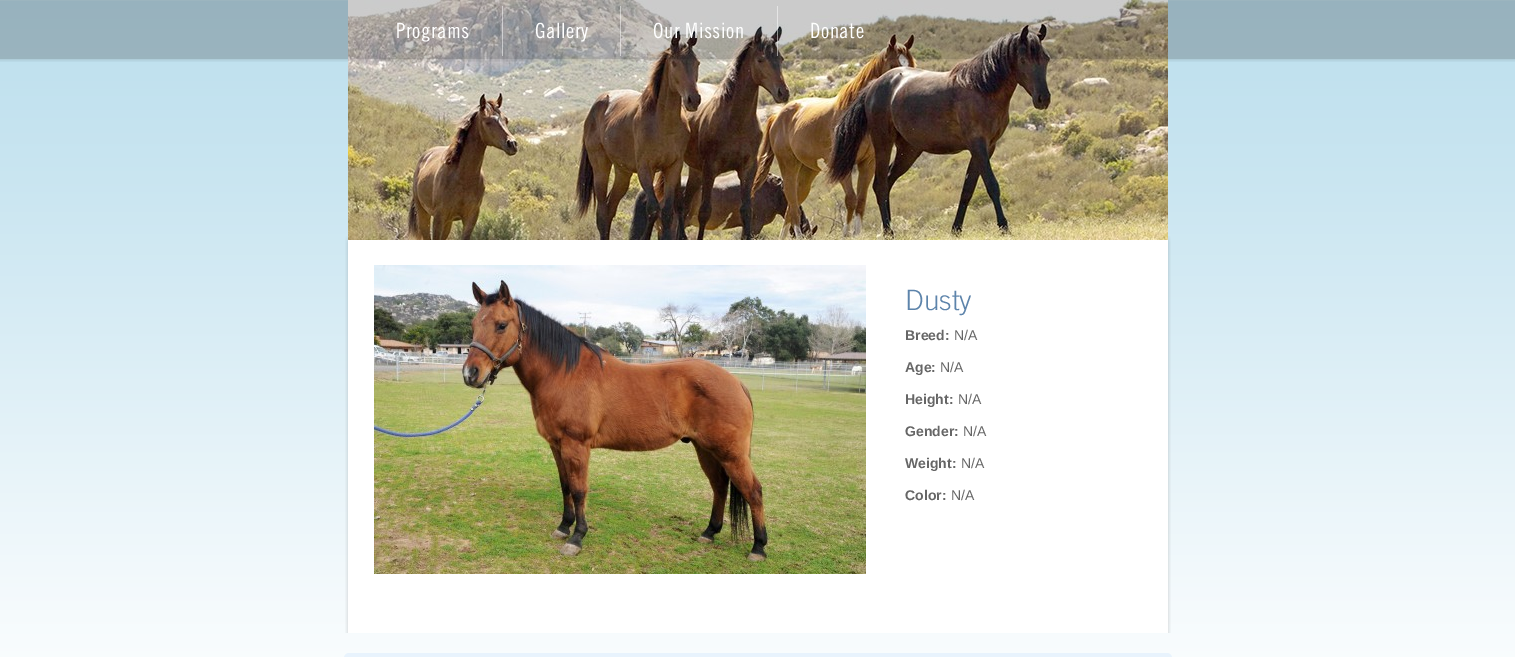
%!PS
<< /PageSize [1515 657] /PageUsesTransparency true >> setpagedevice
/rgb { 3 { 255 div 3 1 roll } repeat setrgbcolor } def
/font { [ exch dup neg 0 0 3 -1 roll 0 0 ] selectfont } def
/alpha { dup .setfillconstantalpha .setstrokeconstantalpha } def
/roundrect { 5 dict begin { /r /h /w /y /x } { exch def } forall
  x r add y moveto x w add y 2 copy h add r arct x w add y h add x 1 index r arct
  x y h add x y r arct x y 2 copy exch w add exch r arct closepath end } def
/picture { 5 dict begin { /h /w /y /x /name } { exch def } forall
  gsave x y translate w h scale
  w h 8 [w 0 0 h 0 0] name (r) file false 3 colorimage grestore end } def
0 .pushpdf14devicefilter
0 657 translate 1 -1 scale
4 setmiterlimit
255 255 255 rgb
0 0 1515 657 rectfill
(img/1.rgb) 0 0 1515 657 picture
(img/4.rgb) 345 236 826 397 picture
(img/3.rgb) 348 0 820 240 picture
(img/2.rgb) 0 0 1515 62 picture
0.5 alpha
[
  [502 6 1 50 255 255 255]
  [620 6 1 50 255 255 255]
  [777 6 1 50 255 255 255]
] { aload pop rgb rectfill } forall
1 alpha
(img/5.rgb) 374 265 492 309 picture
232 243 253 rgb
344 653 828 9 5 roundrect fill
/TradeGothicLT-Medium 21 font
255 255 255 rgb
396 38 moveto 0.5 0 (Programs) ashow
535 38 moveto 0.5 0 (Gallery) ashow
653 38 moveto 0.5 0 (Our Mission) ashow
810 38 moveto 0.5 0 (Donate) ashow
/TradeGothic-Light 28 font
93 132 171 rgb
905 310 moveto (Dusty) show
/LiberationSans-Bold 14 font
102 102 102 rgb
905 340 moveto (Breed:) show
/LiberationSans-Regular 14 font
954 340 moveto (N/A) show
/LiberationSans-Bold 14 font
905 372 moveto (Age:) show
/LiberationSans-Regular 14 font
940 372 moveto (N/A) show
/LiberationSans-Bold 14 font
905 404 moveto (Height:) show
/LiberationSans-Regular 14 font
958 404 moveto (N/A) show
/LiberationSans-Bold 14 font
905 436 moveto (Gender:) show
/LiberationSans-Regular 14 font
963 436 moveto (N/A) show
/LiberationSans-Bold 14 font
905 468 moveto (Weight:) show
/LiberationSans-Regular 14 font
961 468 moveto (N/A) show
/LiberationSans-Bold 14 font
905 500 moveto (Color:) show
/LiberationSans-Regular 14 font
951 500 moveto (N/A) show
.poppdf14devicefilter showpage
